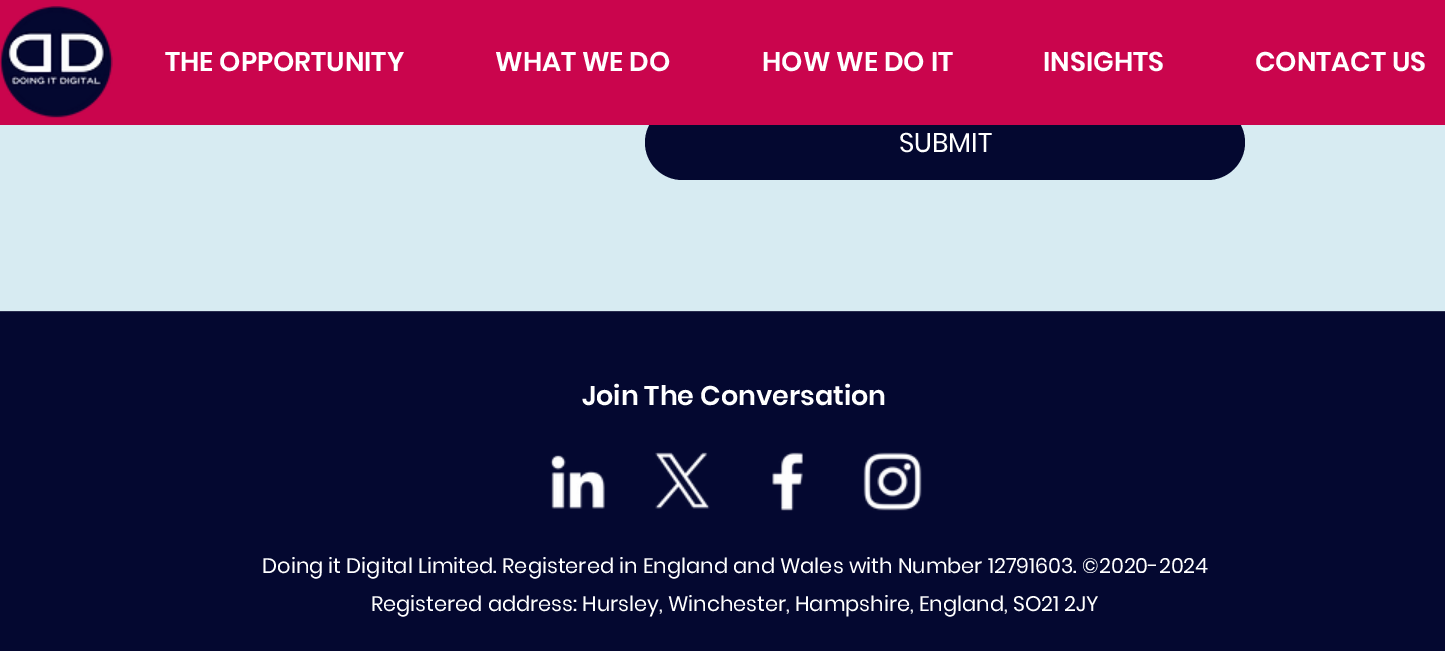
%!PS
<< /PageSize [1445 651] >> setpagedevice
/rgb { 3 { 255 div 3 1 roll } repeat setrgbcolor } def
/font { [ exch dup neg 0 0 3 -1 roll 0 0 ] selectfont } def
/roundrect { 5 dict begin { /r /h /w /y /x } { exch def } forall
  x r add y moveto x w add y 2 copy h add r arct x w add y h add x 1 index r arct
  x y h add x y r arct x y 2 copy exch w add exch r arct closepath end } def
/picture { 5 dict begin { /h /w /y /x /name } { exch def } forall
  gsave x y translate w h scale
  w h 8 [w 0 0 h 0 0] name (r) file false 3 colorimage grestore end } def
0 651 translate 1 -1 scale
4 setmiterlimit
215 235 242 rgb
0 0 1445 651 rectfill
4 8 48 rgb
645 105 600 75 37.5 roundrect fill
202 5 77 rgb
0 0 1445 125 rectfill
(img/1.rgb) 0 6 113 112 picture
42 45 79 rgb
0 311 1445 1 rectfill
4 8 48 rgb
0 312 1445 339 rectfill
(img/2.rgb) 550 455 55 54 picture
(img/3.rgb) 655 452 55 57 picture
(img/4.rgb) 772 452 31 59 picture
(img/5.rgb) 863 452 59 59 picture
/Poppins-SemiBold 27 font
255 255 255 rgb
[
  [(THE OPPORTUNITY) 165 71]
  [(WHAT WE DO) 495 71]
  [(HOW WE DO IT) 762 71]
  [(INSIGHTS) 1043 71]
  [(CONTACT US) 1255 71]
] { aload pop moveto show } forall
/Poppins-Regular 27 font
899 152 moveto (SUBMIT) show
/Poppins-SemiBold 27 font
582 405 moveto (Join The Conversation) show
/Poppins-Regular 21 font
262 573 moveto (Doing it Digital Limited. Registered in England and Wales with Number 12791603. ©2020-2024) show
371 611 moveto (Registered address: Hursley, Winchester, Hampshire, England, SO21 2JY) show
showpage
